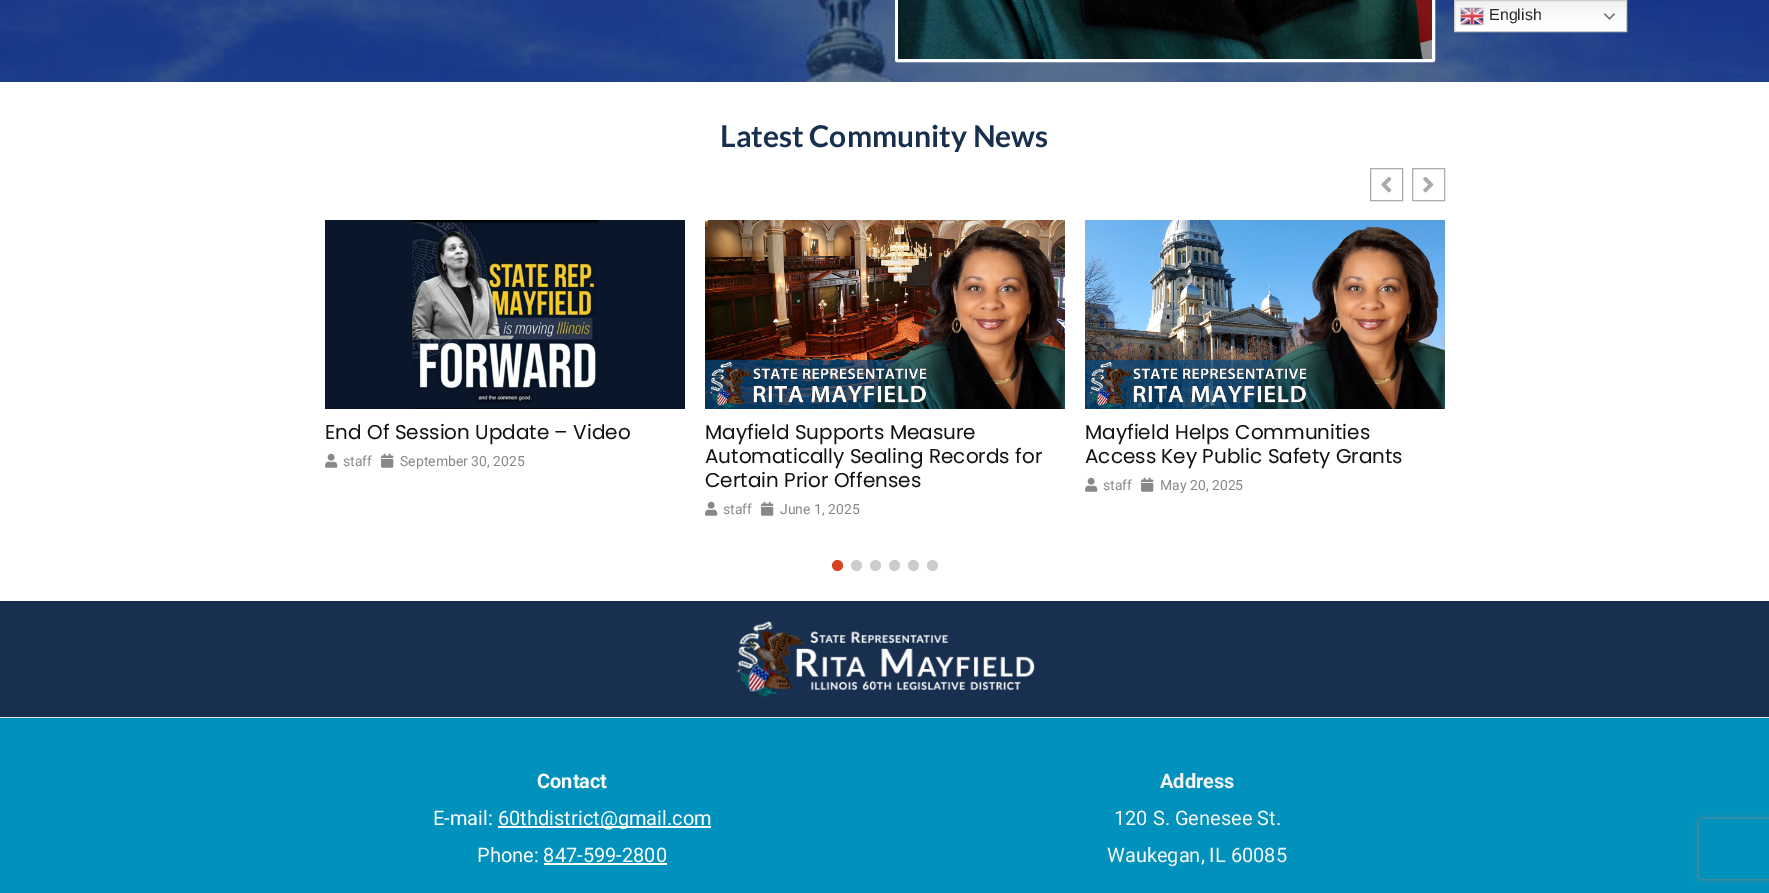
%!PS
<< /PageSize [1769 893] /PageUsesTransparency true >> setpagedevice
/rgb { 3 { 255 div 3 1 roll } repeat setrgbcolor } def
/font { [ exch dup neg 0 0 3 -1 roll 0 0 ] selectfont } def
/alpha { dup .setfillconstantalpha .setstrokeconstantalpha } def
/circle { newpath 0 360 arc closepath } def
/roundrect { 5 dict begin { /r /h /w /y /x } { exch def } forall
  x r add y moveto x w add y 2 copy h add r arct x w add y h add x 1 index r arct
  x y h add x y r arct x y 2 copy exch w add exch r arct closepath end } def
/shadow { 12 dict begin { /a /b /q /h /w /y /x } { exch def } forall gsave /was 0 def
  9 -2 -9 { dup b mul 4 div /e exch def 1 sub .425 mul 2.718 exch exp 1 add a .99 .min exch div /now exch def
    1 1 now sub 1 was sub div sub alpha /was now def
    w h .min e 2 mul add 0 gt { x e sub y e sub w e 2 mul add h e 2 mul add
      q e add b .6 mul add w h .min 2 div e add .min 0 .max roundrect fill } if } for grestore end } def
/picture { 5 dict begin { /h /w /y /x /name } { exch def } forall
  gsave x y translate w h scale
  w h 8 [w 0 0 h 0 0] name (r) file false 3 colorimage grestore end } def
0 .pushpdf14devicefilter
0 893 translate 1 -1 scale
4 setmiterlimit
255 255 255 rgb
0 0 1769 893 rectfill
(img/3.rgb) 0 0 1769 82 picture
gsave 1455 1 moveto 1626 1 lineto 1626 31 lineto 1455 31 lineto closepath clip newpath
<< /ShadingType 2 /ColorSpace /DeviceRGB /Coords [1541 0 1541 32] /Extend [true true] /Function << /FunctionType 3 /Domain [0 1] /Functions [<< /FunctionType 2 /Domain [0 1] /C0 [0.937 0.937 0.937] /C1 [1 1 1] /N 1 >> << /FunctionType 2 /Domain [0 1] /C0 [1 1 1] /C1 [1 1 1] /N 1 >>] /Bounds [0.7] /Encode [0 1 0 1] >> >> shfill grestore
204 204 204 rgb
1454.5 0.5 172 31 rectstroke
(img/1.rgb) 1460 7 24 19 picture
(img/2.rgb) 1604 13 11 7 picture
255 255 255 rgb
3 setlinewidth
896.5 -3.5 537 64 0.5 roundrect stroke
(img/4.rgb) 898 0 534 59 picture
170 170 170 rgb
1 setlinewidth
1370.5 168.5 32 32 rectstroke
(img/5.rgb) 1381 176 11 17 picture
1412.5 168.5 32 32 rectstroke
(img/6.rgb) 1423 176 11 17 picture
(img/7.rgb) 325 220 360 189 picture
(img/8.rgb) 325 453 13 15 picture
(img/9.rgb) 381 453 13 15 picture
(img/10.rgb) 705 220 360 189 picture
(img/8.rgb) 705 501 13 15 picture
(img/9.rgb) 761 501 13 15 picture
(img/11.rgb) 1085 220 360 189 picture
(img/8.rgb) 1085 477 13 15 picture
(img/9.rgb) 1141 477 13 15 picture
214 66 36 rgb
837.5 565.5 5.5 circle fill
204 204 204 rgb
856.5 565.5 5.5 circle fill
875.5 565.5 5.5 circle fill
894.5 565.5 5.5 circle fill
913.5 565.5 5.5 circle fill
932.5 565.5 5.5 circle fill
24 47 80 rgb
0 601 1769 116 rectfill
(img/12.rgb) 736 621 299 76 picture
[
  [0 718 1769 175 0 146 188]
  [0 717 1769 1 230 230 230]
  [498 826 213 2 255 255 255]
  [544 863 123 2 255 255 255]
] { aload pop rgb rectfill } forall
gsave
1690 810 moveto 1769 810 lineto 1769 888 lineto 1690 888 lineto closepath 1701 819 moveto 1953 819 lineto 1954 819 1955 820 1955 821 curveto 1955 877 lineto 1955 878 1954 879 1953 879 curveto 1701 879 lineto 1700 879 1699 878 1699 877 curveto 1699 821 lineto 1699 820 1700 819 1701 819 curveto closepath eoclip newpath
128 128 128 rgb
1699 819 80 60 2 2.5 1 shadow
grestore
/LiberationSans-Regular 16 font
40 40 40 rgb
1489 20 moveto (English) show
/Lato-Bold 30 font
24 47 80 rgb
720 147 moveto (Latest Community News) show
/Poppins-Regular 20 font
17 17 17 rgb
325 439 moveto (End Of Session Update – Video) show
/Roboto-Regular 14 font
136 136 136 rgb
343 466 moveto (staff) show
400 466 moveto (September 30, 2025) show
/Poppins-Regular 20 font
17 17 17 rgb
[
  [(Mayfield Supports Measure) 705 439]
  [(Automatically Sealing Records for) 705 463]
  [(Certain Prior Offenses) 705 487]
] { aload pop moveto show } forall
/Roboto-Regular 14 font
136 136 136 rgb
723 514 moveto (staff) show
780 514 moveto (June 1, 2025) show
/Poppins-Regular 20 font
17 17 17 rgb
1085 439 moveto (Mayfield Helps Communities) show
1085 463 moveto (Access Key Public Safety Grants) show
/Roboto-Regular 14 font
136 136 136 rgb
1103 490 moveto (staff) show
1160 490 moveto (May 20, 2025) show
/Roboto-Bold 20 font
255 255 255 rgb
537 788 moveto (Contact) show
/Roboto-Regular 20 font
[
  [(E-mail:) 433 825]
  [(60thdistrict@gmail.com) 498 825]
  [(Phone: 847-599-2800) 477 862]
] { aload pop moveto show } forall
/Roboto-Bold 20 font
245 245 245 rgb
1160 788 moveto (Address) show
/Roboto-Regular 20 font
1114 825 moveto (120 S. Genesee St.) show
1107 862 moveto (Waukegan, IL 60085) show
.poppdf14devicefilter showpage
